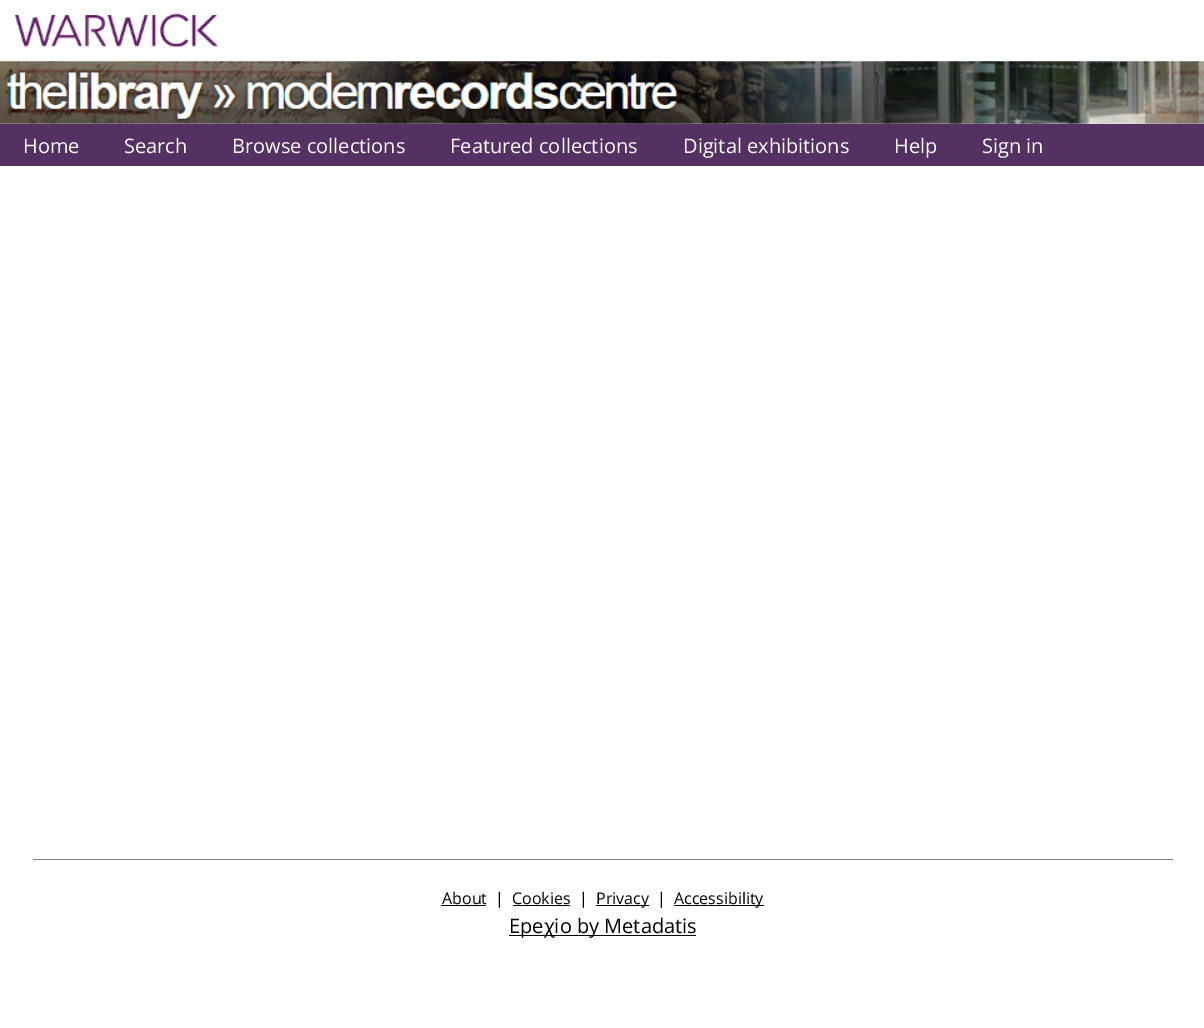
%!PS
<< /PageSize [1204 1028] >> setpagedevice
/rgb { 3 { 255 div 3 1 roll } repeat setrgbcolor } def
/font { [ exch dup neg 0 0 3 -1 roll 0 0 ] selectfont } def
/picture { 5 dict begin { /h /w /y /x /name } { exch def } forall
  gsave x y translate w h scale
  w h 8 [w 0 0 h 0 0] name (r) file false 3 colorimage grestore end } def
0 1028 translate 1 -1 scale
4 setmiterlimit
255 255 255 rgb
0 0 1204 1028 rectfill
(img/1.rgb) 14 13 204 35 picture
(img/2.rgb) 0 61 1204 63 picture
[
  [0 124 1204 42 84 48 99]
  [33 859 1140 1 128 128 128]
  [441 905 45 1 0 0 0]
  [513 905 57 1 0 0 0]
  [596 905 53 1 0 0 0]
  [674 905 90 1 0 0 0]
  [509 935 187 1 0 0 0]
] { aload pop rgb rectfill } forall
/OpenSans-Regular 20 font
255 255 255 rgb
[
  [(Home) 23 153]
  [(Search) 124 153]
  [(Browse collections) 232 153]
  [(Featured collections) 450 153]
  [(Digital exhibitions) 683 153]
  [(Help) 894 153]
  [(Sign in) 982 153]
] { aload pop moveto show } forall
/OpenSans-Regular 16 font
0 0 0 rgb
[
  [(About) 442 904]
  [(|) 495 904]
  [(Cookies) 512 904]
  [(|) 579 904]
  [(Privacy) 596 904]
  [(|) 657 904]
  [(Accessibility) 674 904]
] { aload pop moveto show } forall
/OpenSans-Regular 20 font
509 933 moveto (Epeχio by Metadatis) show
showpage
